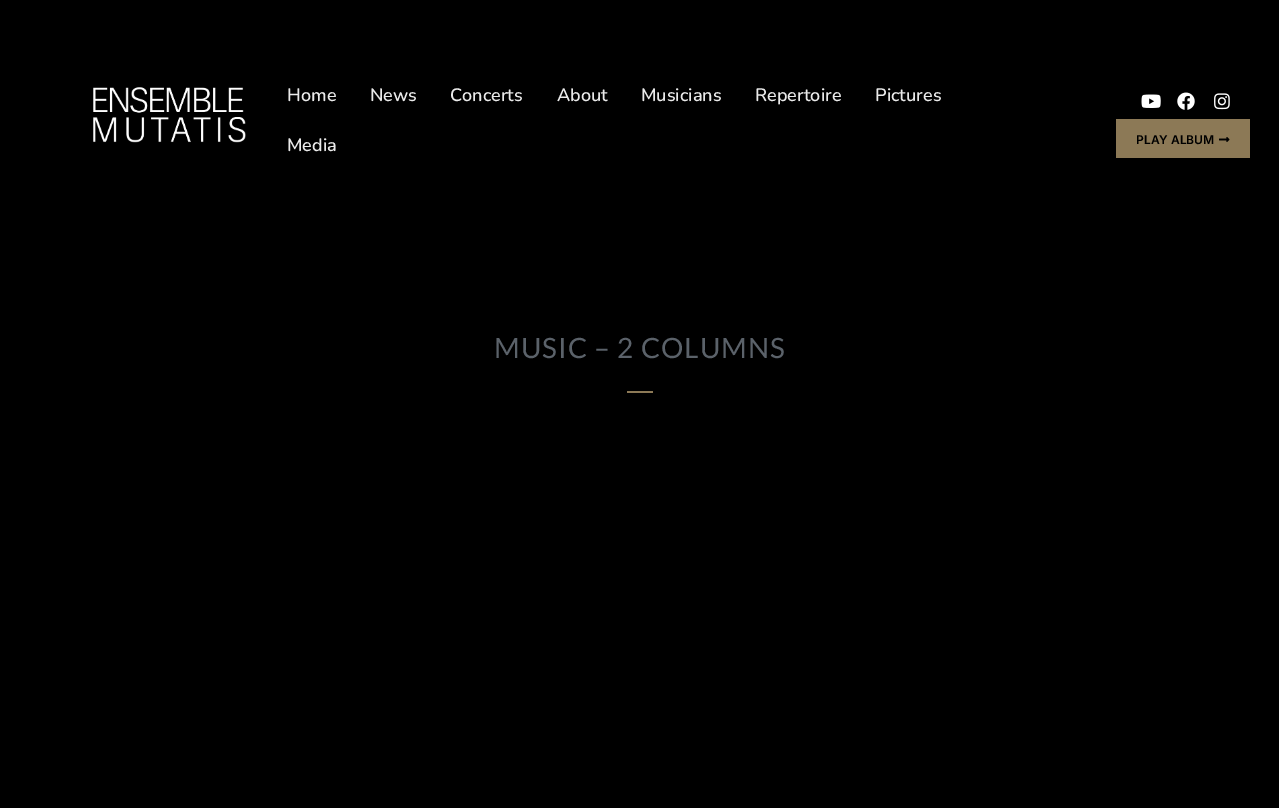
%!PS
<< /PageSize [1279 808] >> setpagedevice
/rgb { 3 { 255 div 3 1 roll } repeat setrgbcolor } def
/font { [ exch dup neg 0 0 3 -1 roll 0 0 ] selectfont } def
/picture { 5 dict begin { /h /w /y /x /name } { exch def } forall
  gsave x y translate w h scale
  w h 8 [w 0 0 h 0 0] name (r) file false 3 colorimage grestore end } def
0 808 translate 1 -1 scale
4 setmiterlimit
0 0 0 rgb
0 0 1279 808 rectfill
(img/1.rgb) 93 87 153 56 picture
(img/2.rgb) 1141 94 20 14 picture
(img/3.rgb) 1177 92 18 18 picture
(img/4.rgb) 1214 93 16 17 picture
140 121 86 rgb
1116 119 134 39 rectfill
(img/5.rgb) 1219 137 11 5 picture
627 391 26 2 rectfill
/Nunito-SemiBold 18 font
234 234 234 rgb
[
  [(Home) 287 101]
  [(News) 370 101]
  [(Concerts) 450 101]
  [(About) 557 101]
  [(Musicians) 641 101]
  [(Repertoire) 755 101]
  [(Pictures) 875 101]
  [(Media) 287 151]
] { aload pop moveto show } forall
/Inter-SemiBold 12 font
0 0 0 rgb
1136 144 moveto (PLAY ALBUM) show
/Lato-Regular 28 font
91 98 106 rgb
494 358 moveto 1 0 (MUSIC – 2 COLUMNS) ashow
showpage
